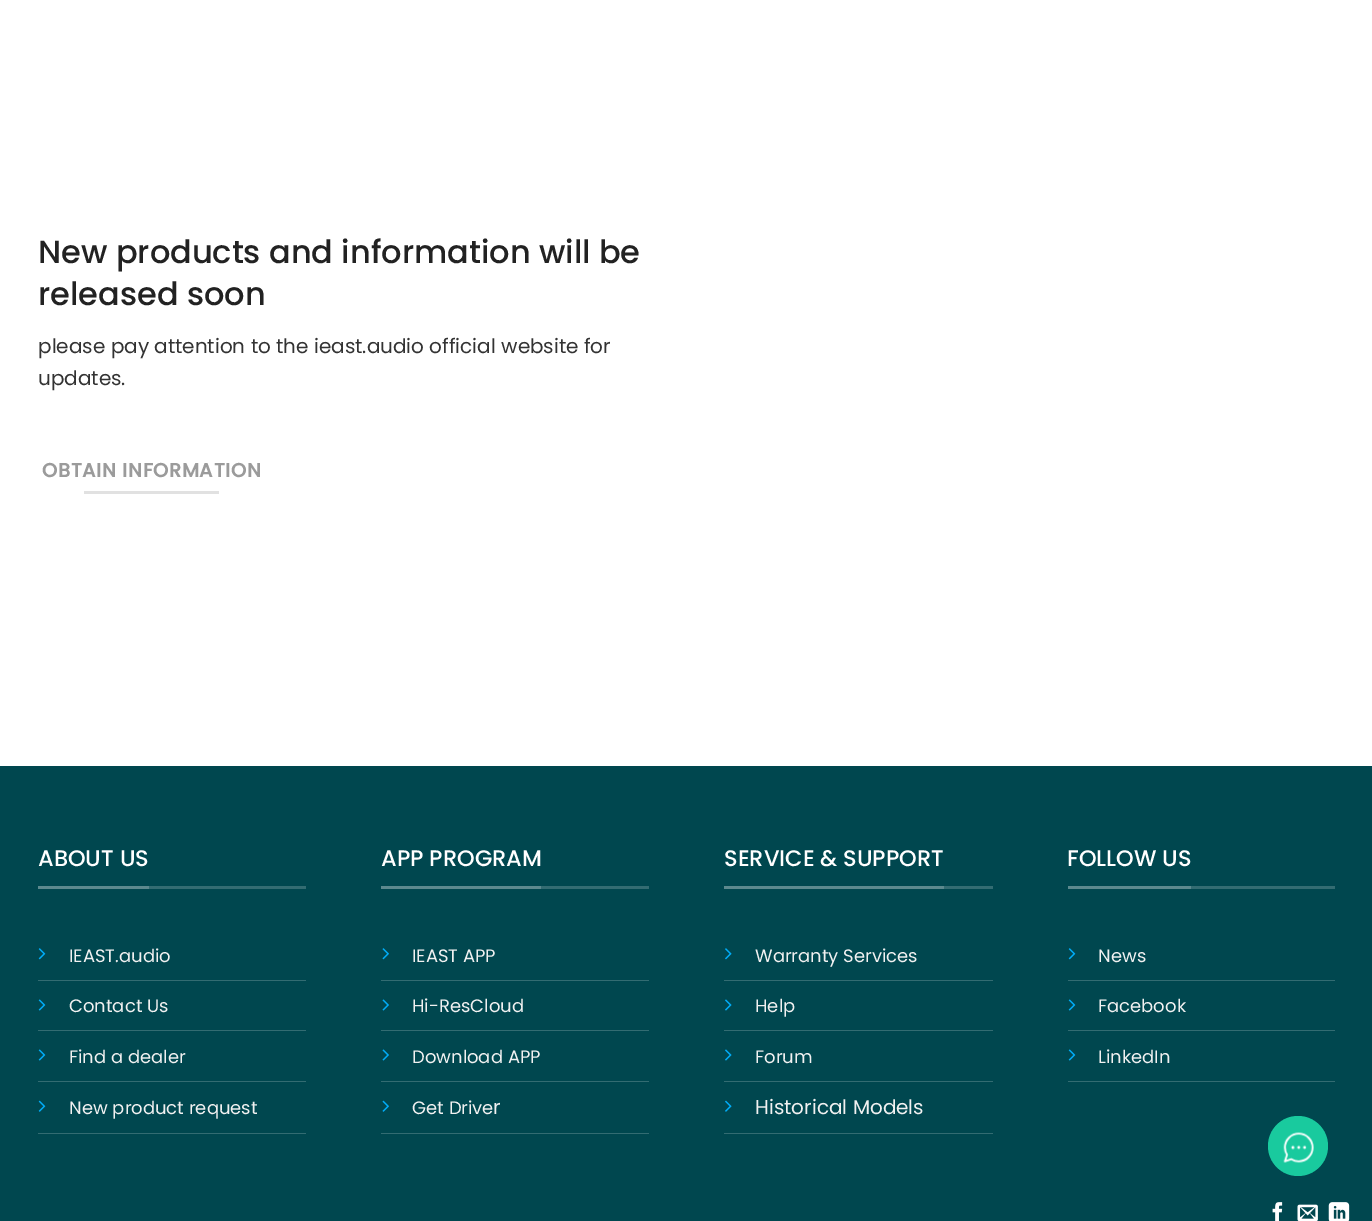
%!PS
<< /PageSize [1372 1221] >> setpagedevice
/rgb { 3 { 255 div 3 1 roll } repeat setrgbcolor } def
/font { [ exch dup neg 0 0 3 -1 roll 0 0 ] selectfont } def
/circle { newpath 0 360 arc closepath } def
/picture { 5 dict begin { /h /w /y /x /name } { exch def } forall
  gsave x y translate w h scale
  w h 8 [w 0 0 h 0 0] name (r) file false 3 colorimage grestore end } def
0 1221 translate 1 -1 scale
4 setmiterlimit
255 255 255 rgb
0 0 1372 1221 rectfill
[
  [84 491 135 3 225 225 225]
  [0 766 1372 455 0 71 79]
  [149 886 157 3 51 108 114]
  [38 886 111 3 92 137 142]
  [38 980 268 1 51 108 114]
] { aload pop rgb rectfill } forall
(img/1.rgb) 38 948 8 12 picture
38 1030 268 1 rectfill
(img/2.rgb) 38 999 8 12 picture
38 1081 268 1 rectfill
(img/2.rgb) 38 1049 8 12 picture
38 1133 268 1 rectfill
(img/3.rgb) 38 1100 8 12 picture
[
  [541 886 108 3 51 108 114]
  [381 886 160 3 92 137 142]
  [381 980 268 1 51 108 114]
] { aload pop rgb rectfill } forall
(img/4.rgb) 382 948 7 12 picture
381 1030 268 1 rectfill
(img/5.rgb) 382 999 7 12 picture
381 1081 268 1 rectfill
(img/5.rgb) 382 1049 7 12 picture
381 1133 268 1 rectfill
(img/6.rgb) 382 1100 7 12 picture
[
  [944 886 49 3 51 108 114]
  [724 886 220 3 92 137 142]
  [724 980 269 1 51 108 114]
] { aload pop rgb rectfill } forall
(img/7.rgb) 725 948 7 12 picture
724 1030 269 1 rectfill
(img/8.rgb) 725 999 7 12 picture
724 1081 269 1 rectfill
(img/8.rgb) 725 1049 7 12 picture
724 1133 269 1 rectfill
(img/9.rgb) 725 1100 7 12 picture
[
  [1191 886 144 3 51 108 114]
  [1068 886 123 3 92 137 142]
  [1068 980 267 1 51 108 114]
] { aload pop rgb rectfill } forall
(img/1.rgb) 1068 948 8 12 picture
1068 1030 267 1 rectfill
(img/2.rgb) 1068 999 8 12 picture
1068 1081 267 1 rectfill
(img/2.rgb) 1068 1049 8 12 picture
(img/10.rgb) 1272 1202 11 19 picture
(img/11.rgb) 1297 1204 21 17 picture
(img/12.rgb) 1328 1202 22 19 picture
25 202 158 rgb
1298 1146 30 circle fill
(img/13.rgb) 1283 1132 31 31 picture
/Poppins-Medium 32 font
34 34 34 rgb
38 263 moveto (New products and information will be) show
38 305 moveto (released soon) show
/Poppins-Regular 20 font
51 51 51 rgb
38 353 moveto (please pay attention to the ieast.audio official website for) show
38 385 moveto (updates.) show
/Poppins-Bold 19.4 font
155 155 155 rgb
42 477 moveto 0.6 0 (OBTAIN INFORMATION) ashow
/Poppins-Medium 22.5 font
255 255 255 rgb
38 866 moveto (ABOUT US) show
/Poppins-Regular 18 font
241 241 241 rgb
[
  [(IEAST.audio) 69 962]
  [(Contact Us) 69 1012]
  [(Find a dealer) 69 1063]
  [(New product request) 69 1114]
] { aload pop moveto show } forall
/Poppins-Medium 22.5 font
255 255 255 rgb
381 866 moveto (APP PROGRAM) show
/Poppins-Regular 18 font
241 241 241 rgb
[
  [(IEAST APP) 412 962]
  [(Hi-ResCloud) 412 1012]
  [(Download APP) 412 1063]
  [(Get Drive) 412 1114]
] { aload pop moveto show } forall
/Poppins-Regular 20 font
493 1114 moveto (r) show
/Poppins-Medium 22.5 font
255 255 255 rgb
724 866 moveto (SERVICE & SUPPORT) show
/Poppins-Regular 18 font
241 241 241 rgb
[
  [(Warranty Services) 755 962]
  [(Help) 755 1012]
  [(Forum) 755 1063]
] { aload pop moveto show } forall
/Poppins-Regular 20 font
755 1114 moveto (Historical Models) show
/Poppins-Medium 22.5 font
255 255 255 rgb
1067 866 moveto (FOLLOW US) show
/Poppins-Regular 18 font
241 241 241 rgb
[
  [(News) 1098 962]
  [(Facebook) 1098 1012]
  [(LinkedIn) 1098 1063]
] { aload pop moveto show } forall
showpage
